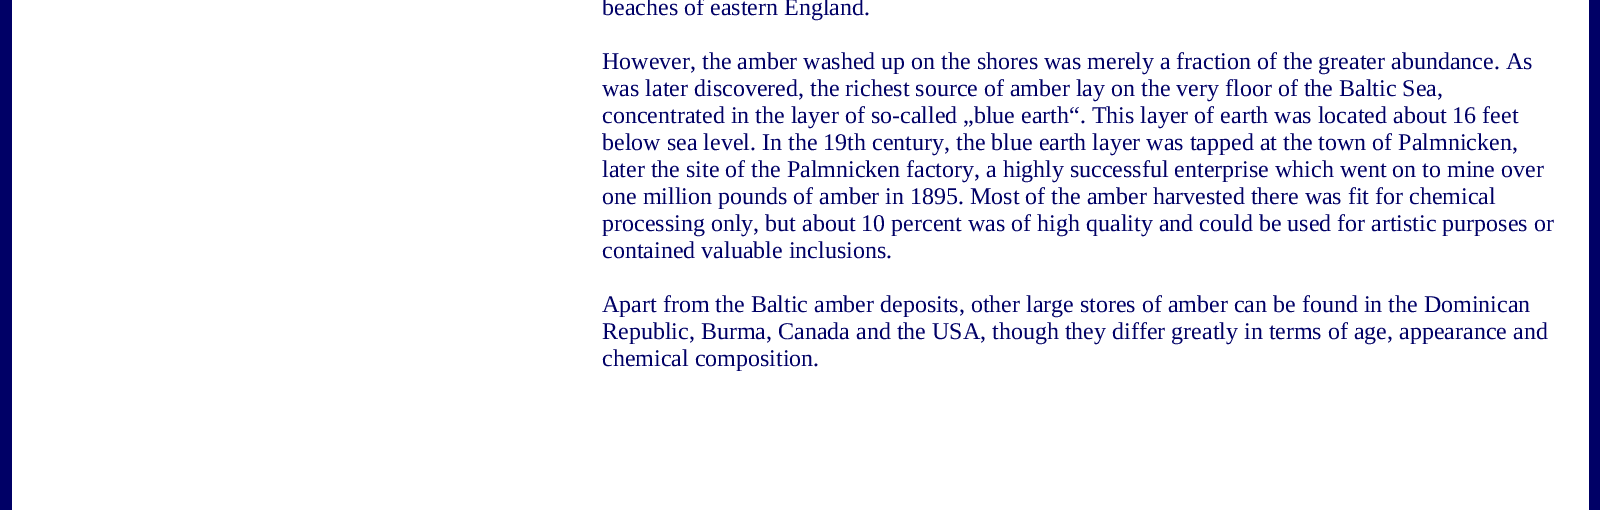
%!PS
<< /PageSize [1600 510] >> setpagedevice
/rgb { 3 { 255 div 3 1 roll } repeat setrgbcolor } def
/font { [ exch dup neg 0 0 3 -1 roll 0 0 ] selectfont } def
0 510 translate 1 -1 scale
4 setmiterlimit
0 0 102 rgb
0 0 1600 510 rectfill
255 255 255 rgb
12 0 1577 510 rectfill
/LiberationSerif-Regular 24 font
0 0 102 rgb
[
  [(beaches of eastern England.) 602 15]
  [(However, the amber washed up on the shores was merely a fraction of the greater abundance. As) 602 69]
  [(was later discovered, the richest source of amber lay on the very floor of the Baltic Sea,) 602 96]
  [(concentrated in the layer of so-called „blue earth“. This layer of earth was located about 16 feet) 602 123]
  [(below sea level. In the 19th century, the blue earth layer was tapped at the town of Palmnicken,) 602 150]
  [(later the site of the Palmnicken factory, a highly successful enterprise which went on to mine over) 602 177]
  [(one million pounds of amber in 1895. Most of the amber harvested there was fit for chemical) 602 204]
  [(processing only, but about 10 percent was of high quality and could be used for artistic purposes or) 602 231]
  [(contained valuable inclusions.) 602 258]
  [(Apart from the Baltic amber deposits, other large stores of amber can be found in the Dominican) 602 312]
  [(Republic, Burma, Canada and the USA, though they differ greatly in terms of age, appearance and) 602 339]
  [(chemical composition.) 602 366]
] { aload pop moveto show } forall
showpage
